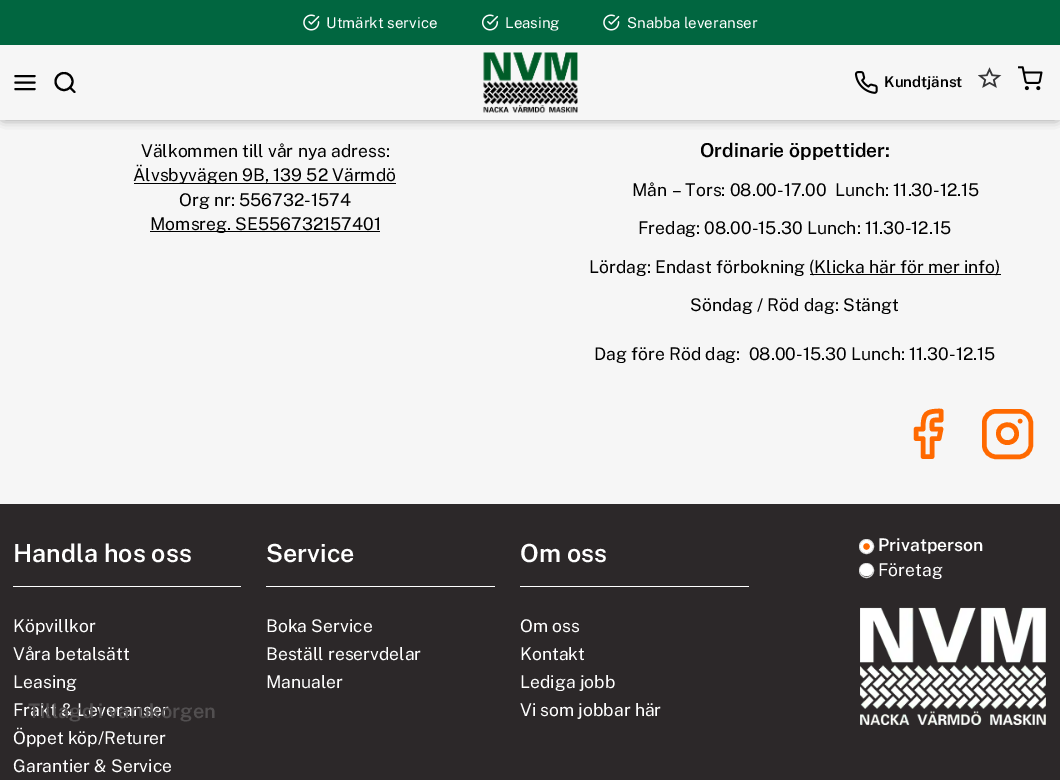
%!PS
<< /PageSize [1060 780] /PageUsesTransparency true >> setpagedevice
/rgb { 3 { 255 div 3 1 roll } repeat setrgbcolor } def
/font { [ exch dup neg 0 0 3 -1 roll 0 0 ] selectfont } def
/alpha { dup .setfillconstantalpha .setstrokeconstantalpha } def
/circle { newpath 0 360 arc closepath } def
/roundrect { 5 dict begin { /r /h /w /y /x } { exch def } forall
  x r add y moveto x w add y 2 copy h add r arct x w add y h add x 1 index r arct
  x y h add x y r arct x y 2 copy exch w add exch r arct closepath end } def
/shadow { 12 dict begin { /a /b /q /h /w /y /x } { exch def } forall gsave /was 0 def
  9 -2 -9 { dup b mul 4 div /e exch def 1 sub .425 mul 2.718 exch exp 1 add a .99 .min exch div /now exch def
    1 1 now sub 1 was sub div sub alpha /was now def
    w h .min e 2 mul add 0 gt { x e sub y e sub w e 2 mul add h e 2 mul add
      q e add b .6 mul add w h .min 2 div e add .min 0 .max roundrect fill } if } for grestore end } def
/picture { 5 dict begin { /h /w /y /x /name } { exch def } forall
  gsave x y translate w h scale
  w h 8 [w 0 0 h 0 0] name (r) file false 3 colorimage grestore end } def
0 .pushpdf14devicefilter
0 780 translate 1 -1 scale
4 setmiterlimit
246 246 246 rgb
0 0 1060 780 rectfill
0 0 0 rgb
4 4 1052 112 0 6 0.4 shadow
1 102 64 rgb
0 0 1060 45 rectfill
(img/1.rgb) 303 14 17 17 picture
(img/2.rgb) 482 14 17 17 picture
(img/1.rgb) 603 14 17 17 picture
0 0 0 rgb
4 61 1052 55 0 6 0.4 shadow
246 246 246 rgb
0 45 1060 75 rectfill
0 0 0 rgb
2.1 setlinewidth
1 setlinecap
1 setlinejoin
15.5 82.5 moveto 34.5 82.5 lineto 15.5 76 moveto 34.5 76 lineto 15.5 89 moveto 34.5 89 lineto stroke
0 setlinecap
0 setlinejoin
64 81.5 8.5 circle stroke
1 setlinecap
1 setlinejoin
74.5 92 moveto 70 87.5 lineto stroke
(img/3.rgb) 483 52 95 61 picture
(img/4.rgb) 854 71 24 23 picture
(img/5.rgb) 978 67 24 21 picture
(img/6.rgb) 1018 66 25 25 picture
[
  [134 183 262 1 0 0 0]
  [150 231 230 1 0 0 0]
  [810 274 191 1 0 0 0]
] { aload pop rgb rectfill } forall
255 105 0 rgb
4.6 setlinewidth
941 411 moveto 925.5 411 923 413.5 923 429 curveto 916 429 lineto 916 438.5 lineto 923 438.5 lineto 923 456.5 lineto 932 456.5 lineto 932 438.5 lineto 939 438.5 lineto 941 429 lineto 932 429 lineto 932 419 931 420 941 420 curveto closepath stroke
4.5 setlinewidth
0 setlinecap
0 setlinejoin
984.25 411.25 46.5 45.5 11.75 roundrect stroke
4.6 setlinewidth
1 setlinecap
1 setlinejoin
1016.5 432.5 moveto 1018.5 444 1000.5 447 998.5 435 curveto 996.5 423 1015 420.5 1016.5 432.5 curveto closepath 1020 421 moveto 1020 421 lineto stroke
[
  [0 504 1060 276 44 40 41]
  [13 586 228 1 255 255 255]
  [266 586 229 1 255 255 255]
  [520 586 229 1 255 255 255]
] { aload pop rgb rectfill } forall
216 216 216 rgb
1 setlinewidth
0 setlinecap
0 setlinejoin
866.5 546.5 7 circle stroke
255 105 0 rgb
866.5 546.5 5 circle gsave fill grestore
255 255 255 rgb
3 setlinewidth
stroke
216 216 216 rgb
1 setlinewidth
866.5 570.5 7 circle stroke
255 255 255 rgb
861.5 565.5 10 9 4.5 roundrect gsave fill grestore
3 setlinewidth
stroke
(img/7.rgb) 860 607 186 118 picture
/PublicSans-Regular 15 font
[
  [(Utmärkt service) 326 28]
  [(Leasing) 505 28]
  [(Snabba leveranser) 627 28]
] { aload pop moveto show } forall
/PublicSans-SemiBold 15 font
0 0 0 rgb
884 87 moveto (Kundtjänst) show
/PublicSans-Regular 17.5 font
[
  [(Välkommen till vår nya adress:) 141 157]
  [(Älvsbyvägen 9B, 139 52 Värmdö) 133 181]
  [(Org nr: 556732-1574) 179 206]
  [(Momsreg. SE556732157401) 150 230]
] { aload pop moveto show } forall
/PublicSans-SemiBold 19.25 font
700 157 moveto (Ordinarie öppettider:) show
/PublicSans-Regular 17.5 font
[
  [(Mån – Tors: 08.00-17.00  Lunch: 11.30-12.15) 632 196]
  [(Fredag: 08.00-15.30 Lunch: 11.30-12.15) 638 234]
  [(Lördag: Endast förbokning) 589 273]
  [(\(Klicka här för mer info\)) 809 273]
  [(Söndag / Röd dag: Stängt) 690 311]
  [(Dag före Röd dag:  08.00-15.30 Lunch: 11.30-12.15) 594 360]
] { aload pop moveto show } forall
/PublicSans-SemiBold 25 font
255 255 255 rgb
13 562 moveto (Handla hos oss) show
/PublicSans-Regular 17.5 font
[
  [(Köpvillkor) 13 632]
  [(Våra betalsätt) 13 660]
  [(Leasing) 13 688]
  [(Frakt & Leveranser) 13 716]
  [(Öppet köp/Returer) 13 744]
  [(Garantier & Service) 13 772]
] { aload pop moveto show } forall
/PublicSans-SemiBold 25 font
266 562 moveto (Service) show
/PublicSans-Regular 17.5 font
[
  [(Boka Service) 266 632]
  [(Beställ reservdelar) 266 660]
  [(Manualer) 266 688]
] { aload pop moveto show } forall
/PublicSans-SemiBold 25 font
520 562 moveto (Om oss) show
/PublicSans-Regular 17.5 font
[
  [(Om oss) 520 632]
  [(Kontakt) 520 660]
  [(Lediga jobb) 520 688]
  [(Vi som jobbar här) 520 716]
] { aload pop moveto show } forall
/PublicSans-SemiBold 17.5 font
878 551 moveto (Privatperson) show
/PublicSans-Regular 17.5 font
878 576 moveto (Företag) show
/PublicSans-SemiBold 20 font
82 79 80 rgb
28 718 moveto (Tillagd i varukorgen) show
.poppdf14devicefilter showpage
